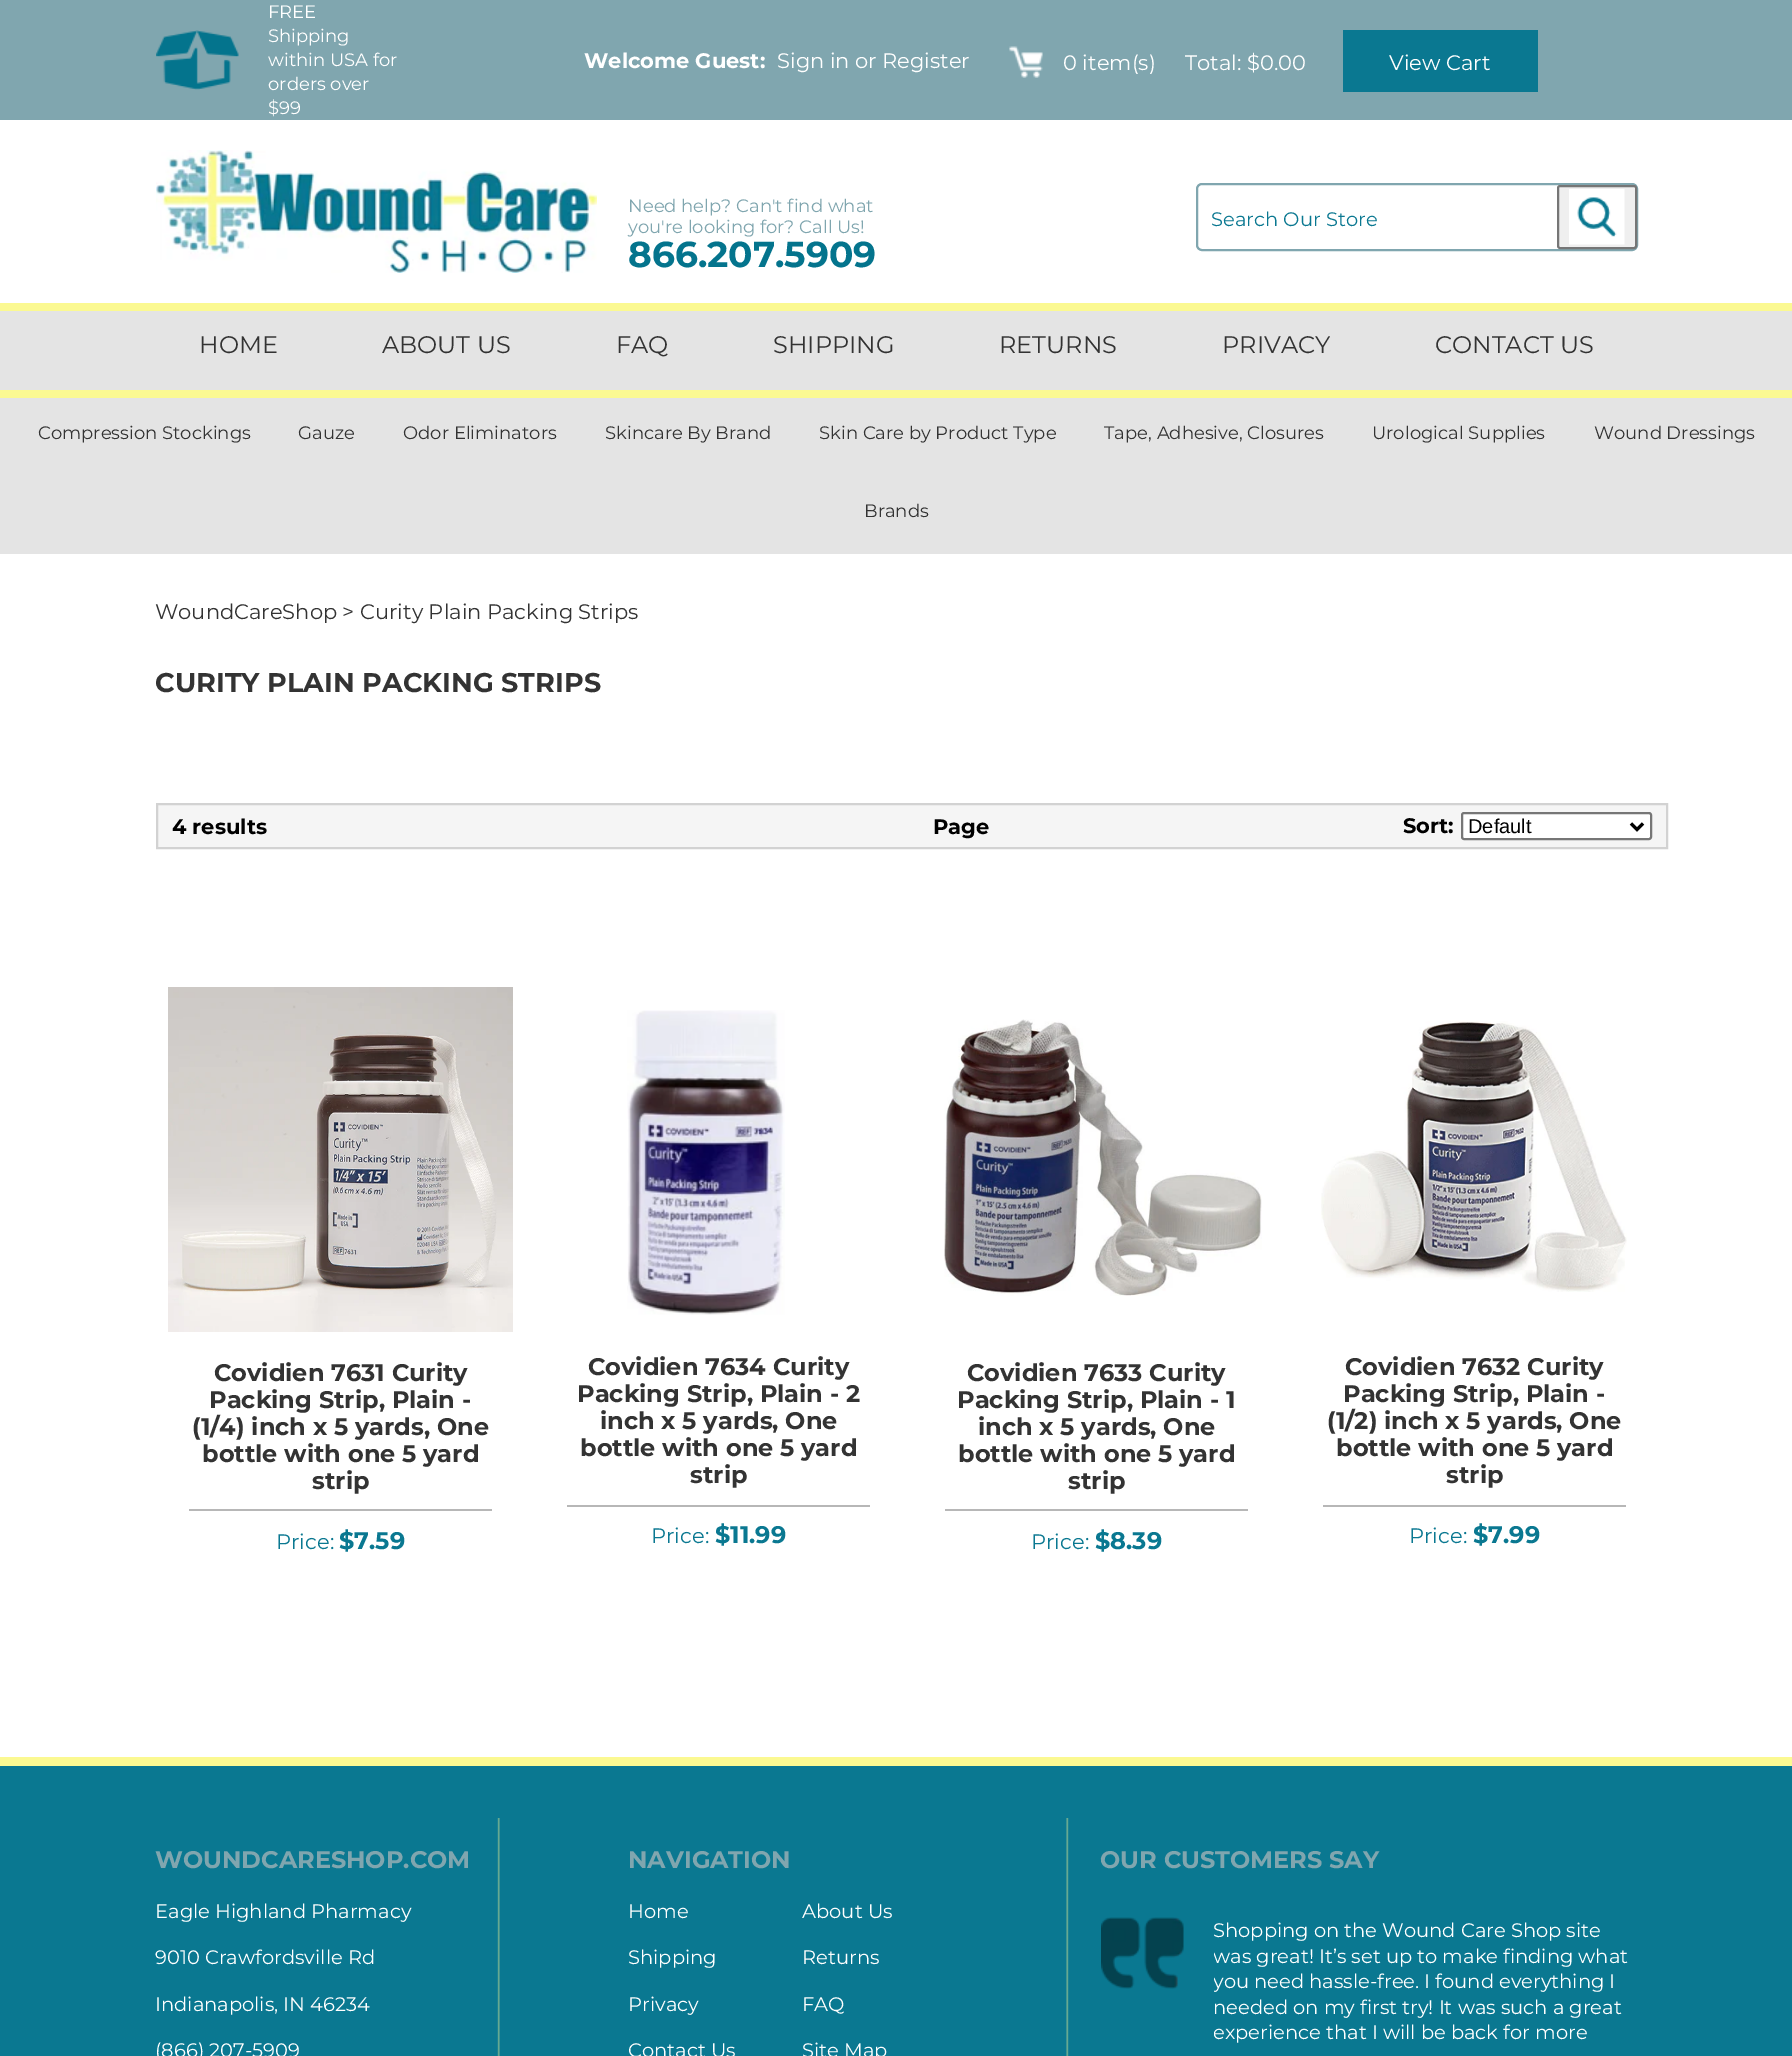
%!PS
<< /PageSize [1792 2056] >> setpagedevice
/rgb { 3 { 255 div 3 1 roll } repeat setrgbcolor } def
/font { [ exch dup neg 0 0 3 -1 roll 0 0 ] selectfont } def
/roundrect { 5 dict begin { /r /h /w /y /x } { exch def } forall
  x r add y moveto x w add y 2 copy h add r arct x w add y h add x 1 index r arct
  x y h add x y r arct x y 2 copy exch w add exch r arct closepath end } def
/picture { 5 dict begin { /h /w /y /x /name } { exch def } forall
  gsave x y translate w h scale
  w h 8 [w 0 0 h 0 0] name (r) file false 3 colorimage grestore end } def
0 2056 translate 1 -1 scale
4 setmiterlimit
255 255 255 rgb
0 0 1792 2056 rectfill
128 166 175 rgb
0 0 1792 120 rectfill
(img/1.rgb) 156 30 83 60 picture
(img/2.rgb) 1009 46 34 32 picture
10 120 145 rgb
1343 30 195 62 rectfill
(img/3.rgb) 156 150 441 123 picture
128 166 175 rgb
2 setlinewidth
1197 184 440 66 5 roundrect stroke
239 239 239 rgb
1558 186 78 62 2 roundrect gsave fill grestore
118 118 118 rgb
stroke
(img/4.rgb) 1569 189 56 56 picture
[
  [0 311 1792 79 228 228 228]
  [0 303 1792 8 251 249 146]
  [0 398 1792 156 228 228 228]
  [0 390 1792 8 251 249 146]
] { aload pop rgb rectfill } forall
245 245 245 rgb
157 804 moveto 1667 804 lineto 1667 848 lineto 157 848 lineto closepath gsave fill grestore
210 210 210 rgb
stroke
255 255 255 rgb
1462 813 189 26 2 roundrect gsave fill grestore
118 118 118 rgb
stroke
0 0 0 rgb
3 setlinewidth
1631 823.5 moveto 1637 829.5 lineto 1643 823.5 lineto stroke
(img/5.rgb) 168 987 345 345 picture
183 183 183 rgb
189 1509 303 2 rectfill
(img/6.rgb) 627 1010 158 305 picture
567 1505 303 2 rectfill
(img/7.rgb) 944 1019 318 277 picture
945 1509 303 2 rectfill
(img/8.rgb) 1321 1021 306 271 picture
[
  [1323 1505 303 2 183 183 183]
  [0 1766 1792 290 10 120 145]
  [0 1757 1792 9 251 249 146]
] { aload pop rgb rectfill } forall
(img/9.rgb) 497 1818 572 238 picture
(img/10.rgb) 1101 1917 83 72 picture
/Montserrat-Regular 18 font
255 255 255 rgb
[
  [(FREE) 268 18]
  [(Shipping) 268 42]
  [(within USA for) 268 66]
  [(orders over) 268 90]
  [($99) 268 114]
] { aload pop moveto show } forall
/Montserrat-Bold 21 font
584 68 moveto (Welcome Guest:) show
/Montserrat-Regular 21 font
[
  [(Sign in or Register) 777 68]
  [(0 item\(s\)) 1063 70]
  [(Total: $0.00) 1185 70]
  [(View Cart) 1389 70]
] { aload pop moveto show } forall
/Montserrat-Regular 18 font
128 166 175 rgb
628 212 moveto (Need help? Can't find what) show
628 233 moveto (you're looking for? Call Us!) show
/Montserrat-Bold 36 font
4 116 141 rgb
628 267 moveto (866.207.5909) show
/Montserrat-Regular 19.5 font
10 120 145 rgb
1211 226 moveto (Search Our Store) show
/Montserrat-Regular 24 font
51 51 51 rgb
[
  [(HOME) 199 353]
  [(ABOUT US) 382 353]
  [(FAQ) 616 353]
  [(SHIPPING) 773 353]
  [(RETURNS) 999 353]
  [(PRIVACY) 1222 353]
  [(CONTACT US) 1435 353]
] { aload pop moveto show } forall
/Montserrat-Regular 18 font
[
  [(Compression Stockings) 38 439]
  [(Gauze) 298 439]
  [(Odor Eliminators) 403 439]
  [(Skincare By Brand) 605 439]
  [(Skin Care by Product Type) 819 439]
  [(Tape, Adhesive, Closures) 1104 439]
  [(Urological Supplies) 1372 439]
  [(Wound Dressings) 1594 439]
  [(Brands) 864 517]
] { aload pop moveto show } forall
/Montserrat-Regular 21 font
155 619 moveto (WoundCareShop > Curity Plain Packing Strips) show
/Montserrat-Bold 27 font
155 692 moveto (CURITY PLAIN PACKING STRIPS) show
/Montserrat-Bold 21 font
0 0 0 rgb
[
  [(4 results) 172 834]
  [(Page) 933 834]
  [(Sort:) 1403 833]
] { aload pop moveto show } forall
/LiberationSans-Regular 20 font
1468 833 moveto (Default) show
/Montserrat-Bold 24 font
51 51 51 rgb
[
  [(Covidien 7631 Curity) 214 1381]
  [(Packing Strip, Plain -) 209 1408]
  [(\(1/4\) inch x 5 yards, One) 192 1435]
  [(bottle with one 5 yard) 202 1462]
  [(strip) 312 1489]
] { aload pop moveto show } forall
/Montserrat-Regular 21 font
10 120 145 rgb
276 1549 moveto (Price:) show
/Montserrat-Bold 24 font
339 1549 moveto ($7.59) show
51 51 51 rgb
[
  [(Covidien 7634 Curity) 588 1375]
  [(Packing Strip, Plain - 2) 577 1402]
  [(inch x 5 yards, One) 600 1429]
  [(bottle with one 5 yard) 580 1456]
  [(strip) 690 1483]
] { aload pop moveto show } forall
/Montserrat-Regular 21 font
10 120 145 rgb
651 1543 moveto (Price:) show
/Montserrat-Bold 24 font
715 1543 moveto ($11.99) show
51 51 51 rgb
[
  [(Covidien 7633 Curity) 967 1381]
  [(Packing Strip, Plain - 1) 957 1408]
  [(inch x 5 yards, One) 978 1435]
  [(bottle with one 5 yard) 958 1462]
  [(strip) 1068 1489]
] { aload pop moveto show } forall
/Montserrat-Regular 21 font
10 120 145 rgb
1031 1549 moveto (Price:) show
/Montserrat-Bold 24 font
1095 1549 moveto ($8.39) show
51 51 51 rgb
[
  [(Covidien 7632 Curity) 1345 1375]
  [(Packing Strip, Plain -) 1343 1402]
  [(\(1/2\) inch x 5 yards, One) 1327 1429]
  [(bottle with one 5 yard) 1336 1456]
  [(strip) 1446 1483]
] { aload pop moveto show } forall
/Montserrat-Regular 21 font
10 120 145 rgb
1409 1543 moveto (Price:) show
/Montserrat-Bold 24 font
1473 1543 moveto ($7.99) show
128 166 175 rgb
155 1868 moveto (WOUNDCARESHOP.COM) show
/Montserrat-Regular 19.5 font
255 255 255 rgb
[
  [(Eagle Highland Pharmacy) 155 1918]
  [(9010 Crawfordsville Rd) 155 1964]
  [(Indianapolis, IN 46234) 155 2011]
  [(\(866\) 207-5909) 155 2057]
] { aload pop moveto show } forall
/Montserrat-Bold 24 font
128 166 175 rgb
628 1868 moveto (NAVIGATION) show
/Montserrat-Regular 19.5 font
255 255 255 rgb
[
  [(Home) 628 1918]
  [(About Us) 802 1918]
  [(Shipping) 628 1964]
  [(Returns) 802 1964]
  [(Privacy) 628 2011]
  [(FAQ) 802 2011]
  [(Contact Us) 628 2057]
  [(Site Map) 802 2057]
] { aload pop moveto show } forall
/Montserrat-Bold 24 font
128 166 175 rgb
1100 1868 moveto (OUR CUSTOMERS SAY) show
/Montserrat-Regular 19.5 font
255 255 255 rgb
1213 1937 moveto (Shopping on the Wound Care Shop site) show
gsave
1214 1917 424 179 rectclip
1213 1963 moveto (was great! It’s set up to make finding what) show
1213 1988 moveto (you need hassle-free. I found everything I) show
grestore
1213 2014 moveto (needed on my first try! It was such a great) show
gsave
1214 1917 424 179 rectclip
1213 2039 moveto (experience that I will be back for more) show
grestore
showpage
